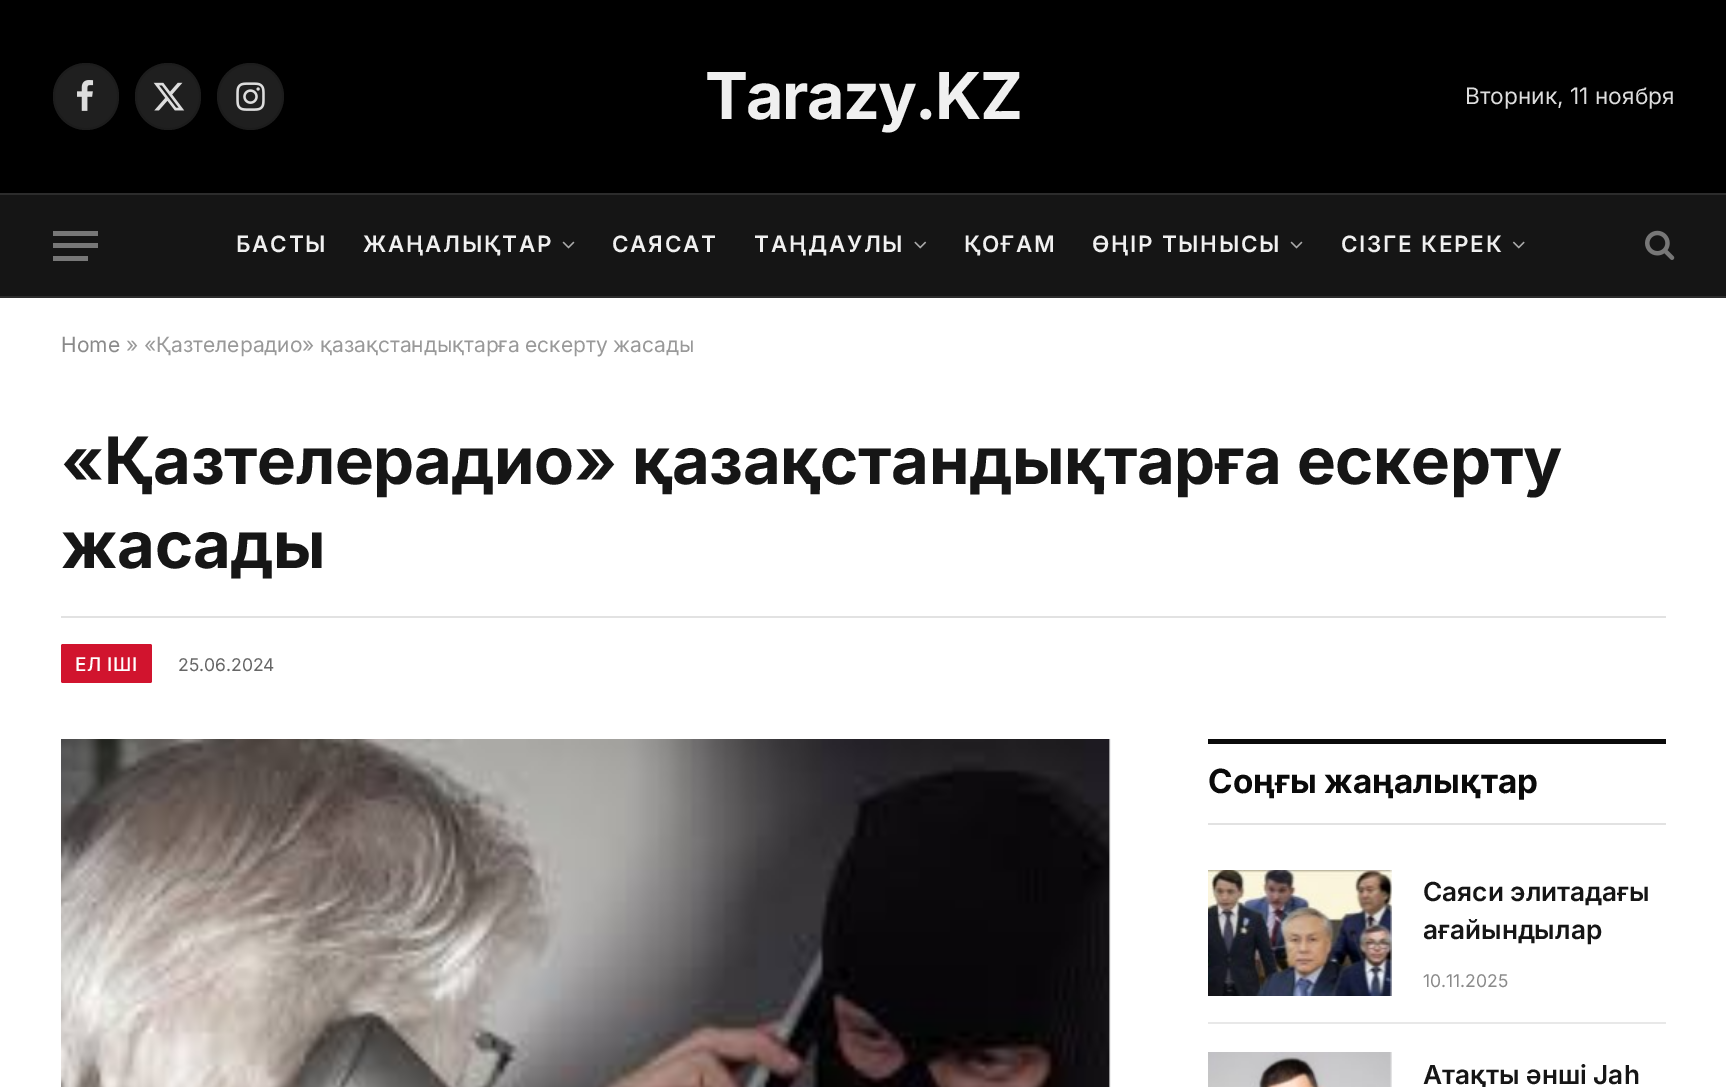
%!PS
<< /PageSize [1726 1087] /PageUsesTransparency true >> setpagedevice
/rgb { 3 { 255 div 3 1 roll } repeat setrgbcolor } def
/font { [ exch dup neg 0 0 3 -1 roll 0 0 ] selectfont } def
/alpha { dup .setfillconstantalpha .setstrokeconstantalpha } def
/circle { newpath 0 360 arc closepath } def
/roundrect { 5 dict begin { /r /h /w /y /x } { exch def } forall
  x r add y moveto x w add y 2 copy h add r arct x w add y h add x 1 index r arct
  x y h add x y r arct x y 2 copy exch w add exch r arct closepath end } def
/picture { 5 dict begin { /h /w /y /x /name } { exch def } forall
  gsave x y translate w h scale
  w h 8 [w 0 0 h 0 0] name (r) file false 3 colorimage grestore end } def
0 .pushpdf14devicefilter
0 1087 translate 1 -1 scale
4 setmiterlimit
255 255 255 rgb
0 0 1726 1087 rectfill
0 0 0 rgb
0 0 1726 193 rectfill
31 31 31 rgb
53 63 66 67 33 roundrect fill
0.09 alpha
0 0 0 rgb
2 setlinewidth
54 64 64 65 32 roundrect stroke
1 alpha
(img/1.rgb) 77 80 17 31 picture
31 31 31 rgb
135 63 66 67 33 roundrect fill
0.09 alpha
0 0 0 rgb
136 64 64 65 32 roundrect stroke
1 alpha
(img/2.rgb) 153 82 32 29 picture
31 31 31 rgb
250.5 96.5 33.5 circle fill
0.09 alpha
0 0 0 rgb
250.5 96.5 32.5 circle stroke
1 alpha
(img/3.rgb) 236 82 29 29 picture
[
  [0 195 1726 101 21 21 21]
  [0 193 1726 2 44 44 44]
  [0 296 1726 2 44 44 44]
  [53 256 35 5 119 119 119]
  [53 231 45 5 119 119 119]
  [53 243 45 5 119 119 119]
] { aload pop rgb rectfill } forall
(img/4.rgb) 562 241 13 8 picture
(img/5.rgb) 914 241 13 8 picture
(img/4.rgb) 1290 241 13 8 picture
(img/6.rgb) 1512 241 13 8 picture
(img/7.rgb) 1645 230 30 30 picture
226 226 226 rgb
61 616 1605 2 rectfill
209 20 46 rgb
61 644 91 39 2 roundrect fill
(img/8.rgb) 61 739 1050 348 picture
10 10 10 rgb
1208 739 458 5 rectfill
226 226 226 rgb
1208 823 458 2 rectfill
(img/9.rgb) 1208 870 184 126 picture
232 232 232 rgb
1208 1022 458 2 rectfill
(img/10.rgb) 1208 1052 184 35 picture
/Inter-Bold 64.75 font
240 240 240 rgb
705 119 moveto -1.75 0 (Tarazy.KZ) ashow
/Inter-Regular 22.75 font
221 221 221 rgb
1465 104 moveto (Вторник, 11 ноября) show
/Inter-SemiBold 22.5 font
240 240 240 rgb
236 252 moveto 1.75 0 (БАСТЫ) ashow
363 252 moveto 1.75 0 (ЖАҢАЛЫҚТАР) ashow
612 252 moveto 1.75 0 (САЯСАТ) ashow
754 252 moveto 1.75 0 (ТАҢДАУЛЫ) ashow
964 252 moveto 1.75 0 (ҚОҒАМ) ashow
1092 252 moveto 1.75 0 (ӨҢІР ТЫНЫСЫ) ashow
1341 252 moveto 1.75 0 (СІЗГЕ КЕРЕК) ashow
/Inter-Regular 21 font
138 138 138 rgb
61 352 moveto (Home) show
153 153 153 rgb
126 352 moveto (» «Қазтелерадио» қазақстандықтарға ескерту жасады) show
/Inter-Bold 65.25 font
22 22 22 rgb
61 484 moveto -0.35 0 («Қазтелерадио» қазақстандықтарға ескерту) ashow
61 568 moveto -0.35 0 (жасады) ashow
/Inter-Medium 19 font
255 255 255 rgb
75 671 moveto 0.5 0 (ЕЛ ІШІ) ashow
/Inter-Regular 17.5 font
102 102 102 rgb
178 671 moveto (25.06.2024) show
/Inter-Bold 33.25 font
10 10 10 rgb
1208 793 moveto (Соңғы жаңалықтар) show
/Inter-SemiBold 26.25 font
22 22 22 rgb
1423 901 moveto (Саяси элитадағы) show
1423 939 moveto (ағайындылар) show
/Inter-Regular 17.5 font
138 138 138 rgb
1423 987 moveto (10.11.2025) show
/Inter-SemiBold 26.25 font
22 22 22 rgb
1423 1084 moveto (Атақты әнші Jah) show
.poppdf14devicefilter showpage
